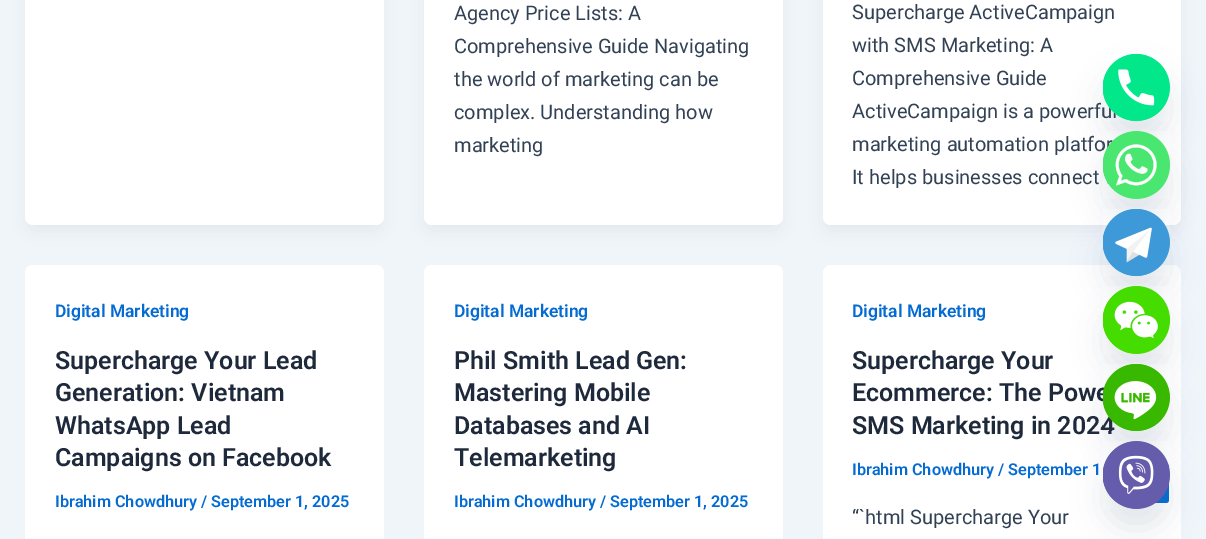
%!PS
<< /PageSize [1206 539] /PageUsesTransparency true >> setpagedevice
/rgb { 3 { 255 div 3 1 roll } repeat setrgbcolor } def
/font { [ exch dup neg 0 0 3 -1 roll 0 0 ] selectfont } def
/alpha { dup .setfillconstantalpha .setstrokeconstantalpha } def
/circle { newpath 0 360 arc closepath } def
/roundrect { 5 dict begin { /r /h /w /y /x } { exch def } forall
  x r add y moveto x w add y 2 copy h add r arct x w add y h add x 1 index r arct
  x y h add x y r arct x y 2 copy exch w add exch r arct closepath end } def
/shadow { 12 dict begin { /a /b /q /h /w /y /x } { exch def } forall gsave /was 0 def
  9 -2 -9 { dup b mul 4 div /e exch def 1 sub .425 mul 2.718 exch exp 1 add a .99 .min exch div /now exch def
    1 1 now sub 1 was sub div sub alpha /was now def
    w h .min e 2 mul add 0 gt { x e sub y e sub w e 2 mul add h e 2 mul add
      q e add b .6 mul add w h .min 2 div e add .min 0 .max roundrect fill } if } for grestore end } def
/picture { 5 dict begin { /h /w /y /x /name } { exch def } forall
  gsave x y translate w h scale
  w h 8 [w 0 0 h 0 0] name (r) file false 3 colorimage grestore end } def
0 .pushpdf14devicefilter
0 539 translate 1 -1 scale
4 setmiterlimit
240 245 250 rgb
0 0 1206 539 rectfill
16 24 40 rgb
28 -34 353 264 5 9.5 0.05 shadow
255 255 255 rgb
25 -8 359 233 8 roundrect fill
16 24 40 rgb
426 -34 354 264 5 9.5 0.05 shadow
255 255 255 rgb
424 -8 359 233 8 roundrect fill
16 24 40 rgb
825 -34 354 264 5 9.5 0.05 shadow
255 255 255 rgb
823 -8 358 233 8 roundrect fill
25 265 359 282 8 roundrect fill
424 265 359 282 8 roundrect fill
823 265 358 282 8 roundrect fill
73 104 126 rgb
1103 74 67 67 33.5 15 0.16 shadow
4 107 210 rgb
1130 464 39 39 2.5 roundrect fill
/Roboto-Regular 20 font
51 65 85 rgb
[
  [(Agency Price Lists: A) 454 20]
  [(Comprehensive Guide Navigating) 454 53]
  [(the world of marketing can be) 454 86]
  [(complex. Understanding how) 454 119]
  [(marketing) 454 152]
  [(Supercharge ActiveCampaign) 852 19]
  [(with SMS Marketing: A) 852 52]
  [(Comprehensive Guide) 852 85]
  [(ActiveCampaign is a powerfu) 852 118]
  [(marketing automation platfor) 852 151]
  [(It helps businesses connect) 852 184]
] { aload pop moveto show } forall
/Roboto-SemiBold 17.5 font
4 107 210 rgb
55 317 moveto (Digital Marketing) show
/Roboto-SemiBold 25 font
30 41 59 rgb
[
  [(Supercharge Your Lead) 55 369]
  [(Generation: Vietnam) 55 401]
  [(WhatsApp Lead) 55 434]
  [(Campaigns on Facebook) 55 466]
] { aload pop moveto show } forall
/Roboto-SemiBold 16.25 font
4 107 210 rgb
55 507 moveto (Ibrahim Chowdhury / September 1, 2025) show
/Roboto-SemiBold 17.5 font
454 317 moveto (Digital Marketing) show
/Roboto-SemiBold 25 font
30 41 59 rgb
[
  [(Phil Smith Lead Gen:) 454 369]
  [(Mastering Mobile) 454 401]
  [(Databases and AI) 454 434]
  [(Telemarketing) 454 466]
] { aload pop moveto show } forall
/Roboto-SemiBold 16.25 font
4 107 210 rgb
454 507 moveto (Ibrahim Chowdhury / September 1, 2025) show
/Roboto-SemiBold 17.5 font
852 317 moveto (Digital Marketing) show
/Roboto-SemiBold 25 font
30 41 59 rgb
[
  [(Supercharge Your) 852 369]
  [(Ecommerce: The Powe) 852 401]
  [(SMS Marketing in 2024) 852 434]
] { aload pop moveto show } forall
/Roboto-SemiBold 16.25 font
4 107 210 rgb
852 475 moveto (Ibrahim Chowdhury / September 1) show
/Roboto-Regular 20 font
51 65 85 rgb
852 524 moveto (“`html Supercharge Your) show
3 231 139 rgb
1136.5 87.5 33.5 circle fill
(img/1.rgb) 1103 54 67 67 picture
73 104 126 rgb
1103 151 67 68 33.5 15 0.16 shadow
73 230 112 rgb
1103 131 67 68 33.5 roundrect fill
(img/2.rgb) 1103 131 67 68 picture
73 104 126 rgb
1103 229 67 67 33.5 15 0.16 shadow
62 153 216 rgb
1136.5 242.5 33.5 circle fill
(img/3.rgb) 1103 209 67 67 picture
73 104 126 rgb
1103 306 67 68 33.5 15 0.16 shadow
69 220 0 rgb
1103 286 67 68 33.5 roundrect fill
(img/4.rgb) 1103 286 67 68 picture
73 104 126 rgb
1103 384 67 67 33.5 15 0.16 shadow
56 185 0 rgb
1136.5 397.5 33.5 circle fill
(img/5.rgb) 1103 364 67 67 picture
73 104 126 rgb
1103 461 67 68 33.5 15 0.16 shadow
102 92 172 rgb
1103 441 67 68 33.5 roundrect fill
(img/6.rgb) 1103 441 67 68 picture
.poppdf14devicefilter showpage
